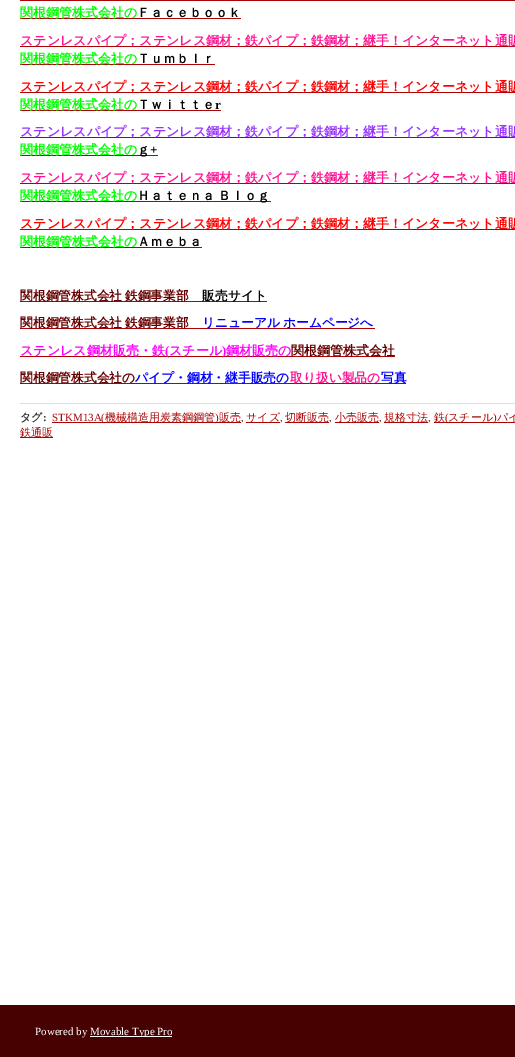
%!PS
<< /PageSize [515 1057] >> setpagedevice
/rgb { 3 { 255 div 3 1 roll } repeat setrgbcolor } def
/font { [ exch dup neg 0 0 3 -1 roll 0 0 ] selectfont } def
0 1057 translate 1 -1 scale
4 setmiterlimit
255 255 255 rgb
0 0 515 1057 rectfill
[
  [20 0 495 1 171 4 4]
  [20 18 221 1 171 4 4]
  [20 46 495 1 171 4 4]
  [20 64 195 1 171 4 4]
  [20 92 495 1 171 4 4]
  [20 110 201 1 171 4 4]
  [20 137 495 1 171 4 4]
  [20 155 138 1 171 4 4]
  [20 183 495 1 171 4 4]
  [20 201 251 1 171 4 4]
  [20 229 495 1 171 4 4]
  [20 247 182 1 171 4 4]
  [20 301 247 1 171 4 4]
  [20 328 355 1 171 4 4]
  [20 356 375 1 171 4 4]
  [20 383 386 1 171 4 4]
  [20 403 495 1 221 221 221]
  [52 422 189 1 171 4 4]
  [246 422 34 1 171 4 4]
  [285 422 44 1 171 4 4]
  [335 422 44 1 171 4 4]
  [384 422 44 1 171 4 4]
  [434 422 81 1 171 4 4]
  [20 437 33 1 171 4 4]
  [0 1005 515 52 71 1 1]
  [90 1036 82 1 255 255 255]
] { aload pop rgb rectfill } forall
/WenQuanYiZenHei-Bold 13 font
0 255 0 rgb
20 17 moveto (関根鋼管株式会社の) show
0 0 0 rgb
137 17 moveto (Ｆａｃｅｂｏｏｋ) show
255 20 147 rgb
20 45 moveto (ステンレスパイプ；ステンレス鋼材；鉄パイプ；鉄鋼材；継手！インターネット通販) show
0 255 0 rgb
20 63 moveto (関根鋼管株式会社の) show
0 0 0 rgb
137 63 moveto (Ｔｕｍｂｌｒ) show
255 0 0 rgb
20 91 moveto (ステンレスパイプ；ステンレス鋼材；鉄パイプ；鉄鋼材；継手！インターネット通販) show
0 255 0 rgb
20 109 moveto (関根鋼管株式会社の) show
0 0 0 rgb
137 109 moveto (Ｔｗｉｔｔｅ) show
/LiberationSerif-Bold 13 font
215 109 moveto (r) show
/WenQuanYiZenHei-Bold 13 font
153 51 255 rgb
20 136 moveto (ステンレスパイプ；ステンレス鋼材；鉄パイプ；鉄鋼材；継手！インターネット通販) show
0 255 0 rgb
20 154 moveto (関根鋼管株式会社の) show
0 0 0 rgb
137 154 moveto (ｇ) show
/LiberationSerif-Bold 13 font
150 154 moveto (+) show
/WenQuanYiZenHei-Bold 13 font
255 20 147 rgb
20 182 moveto (ステンレスパイプ；ステンレス鋼材；鉄パイプ；鉄鋼材；継手！インターネット通販) show
0 255 0 rgb
20 200 moveto (関根鋼管株式会社の) show
0 0 0 rgb
137 200 moveto -1 0 32 (Ｈａｔｅｎａ Ｂｌｏｇ) widthshow
255 0 0 rgb
20 228 moveto (ステンレスパイプ；ステンレス鋼材；鉄パイプ；鉄鋼材；継手！インターネット通販) show
0 255 0 rgb
20 246 moveto (関根鋼管株式会社の) show
0 0 0 rgb
137 246 moveto (Ａｍｅｂａ) show
/WenQuanYiZenHei-Bold 12.75 font
102 0 0 rgb
20 300 moveto -1 0 32 (関根鋼管株式会社 鉄鋼事業部) widthshow
0 0 0 rgb
202 300 moveto (販売サイト) show
102 0 0 rgb
20 327 moveto -1 0 32 (関根鋼管株式会社 鉄鋼事業部) widthshow
0 0 255 rgb
202 327 moveto -1 0 32 (リニューアル ホームページへ) widthshow
/WenQuanYiZenHei-Bold 13 font
255 0 255 rgb
20 355 moveto (ステンレス鋼材販売・鉄) show
/LiberationSerif-Bold 13 font
165 355 moveto (\() show
/WenQuanYiZenHei-Bold 13 font
169 355 moveto (スチール) show
/LiberationSerif-Bold 13 font
222 355 moveto (\)) show
/WenQuanYiZenHei-Bold 13 font
226 355 moveto (鋼材販売の) show
102 0 0 rgb
291 355 moveto (関根鋼管株式会社) show
/WenQuanYiZenHei-Bold 12.75 font
20 382 moveto (関根鋼管株式会社の) show
0 0 255 rgb
135 382 moveto (パイプ・鋼材・継手販売の) show
255 20 147 rgb
290 382 moveto (取り扱い製品の) show
0 0 255 rgb
381 382 moveto (写真) show
/WenQuanYiZenHei-Bold 11 font
51 51 51 rgb
20 421 moveto (タグ) show
/LiberationSerif-Bold 11 font
43 421 moveto (:) show
/LiberationSerif-Regular 11 font
171 4 4 rgb
52 421 moveto (STKM13A\() show
/WenQuanYiZenHei-Medium 11 font
105 421 moveto (機械構造用炭素鋼鋼管) show
/LiberationSerif-Regular 11 font
215 421 moveto (\)) show
/WenQuanYiZenHei-Medium 11 font
219 421 moveto (販売) show
/LiberationSerif-Regular 11 font
51 51 51 rgb
241 421 moveto (,) show
/WenQuanYiZenHei-Medium 11 font
171 4 4 rgb
246 421 moveto (サイズ) show
/LiberationSerif-Regular 11 font
51 51 51 rgb
280 421 moveto (,) show
/WenQuanYiZenHei-Medium 11 font
171 4 4 rgb
285 421 moveto (切断販売) show
/LiberationSerif-Regular 11 font
51 51 51 rgb
329 421 moveto (,) show
/WenQuanYiZenHei-Medium 11 font
171 4 4 rgb
335 421 moveto (小売販売) show
/LiberationSerif-Regular 11 font
51 51 51 rgb
379 421 moveto (,) show
/WenQuanYiZenHei-Medium 11 font
171 4 4 rgb
384 421 moveto (規格寸法) show
/LiberationSerif-Regular 11 font
51 51 51 rgb
428 421 moveto (,) show
/WenQuanYiZenHei-Medium 11 font
171 4 4 rgb
434 421 moveto (鉄) show
/LiberationSerif-Regular 11 font
445 421 moveto (\() show
/WenQuanYiZenHei-Medium 11 font
448 421 moveto (スチール) show
/LiberationSerif-Regular 11 font
493 421 moveto (\)) show
/WenQuanYiZenHei-Medium 11 font
497 421 moveto (パイ) show
20 436 moveto (鉄通販) show
/LiberationSerif-Regular 11 font
255 255 255 rgb
35 1035 moveto (Powered by) show
gsave
20 1025 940 12 rectclip
90 1035 moveto (Movable Type Pro) show
grestore
showpage
